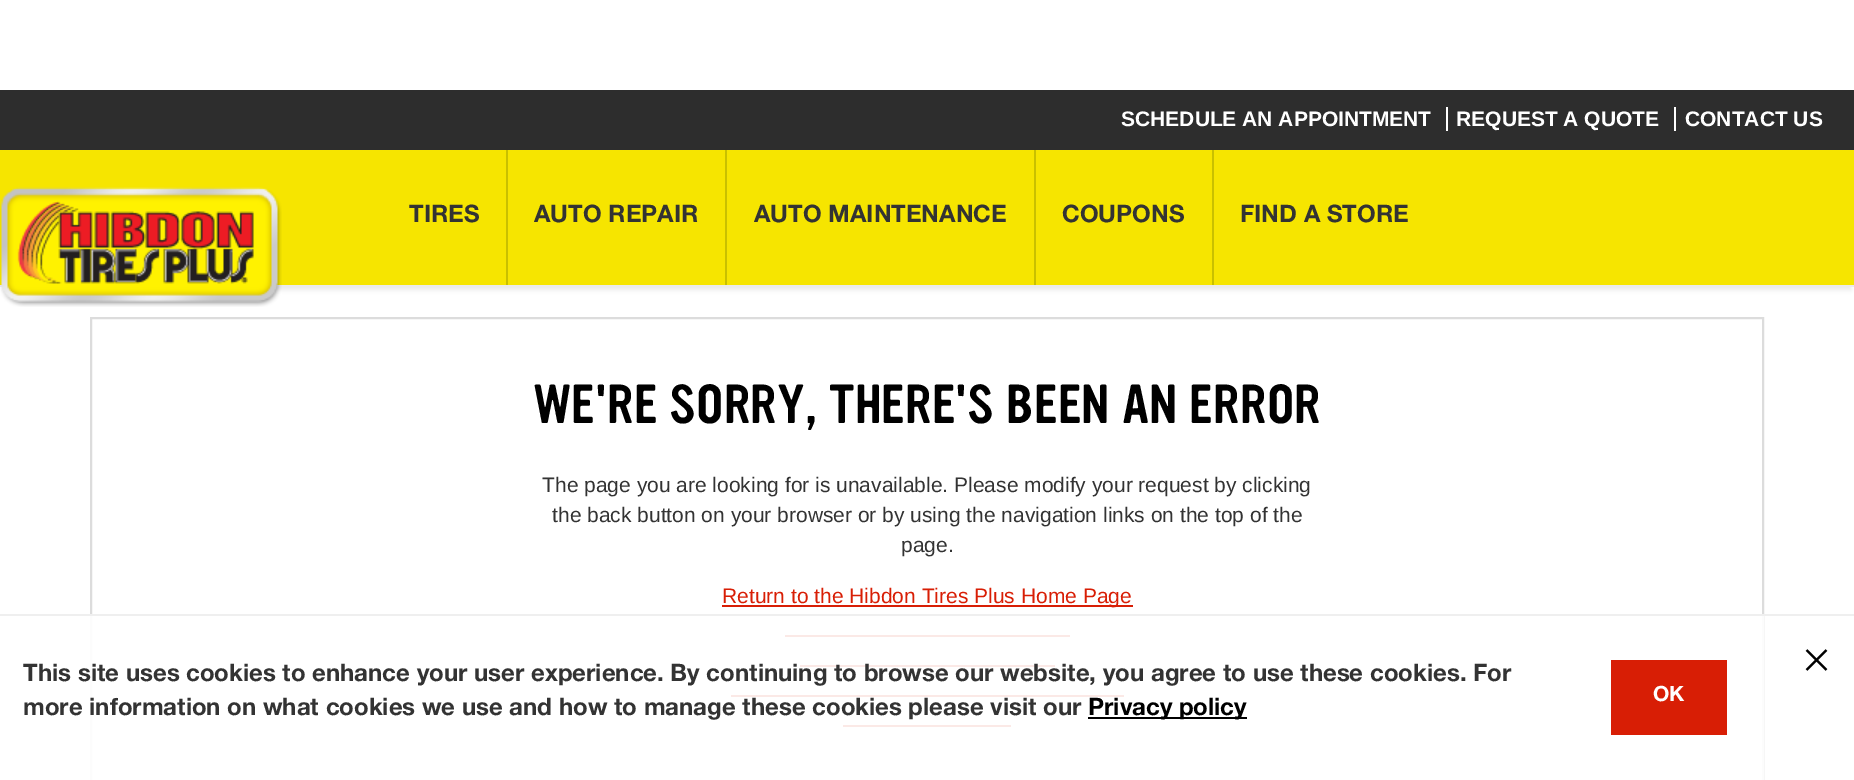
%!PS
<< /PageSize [1854 780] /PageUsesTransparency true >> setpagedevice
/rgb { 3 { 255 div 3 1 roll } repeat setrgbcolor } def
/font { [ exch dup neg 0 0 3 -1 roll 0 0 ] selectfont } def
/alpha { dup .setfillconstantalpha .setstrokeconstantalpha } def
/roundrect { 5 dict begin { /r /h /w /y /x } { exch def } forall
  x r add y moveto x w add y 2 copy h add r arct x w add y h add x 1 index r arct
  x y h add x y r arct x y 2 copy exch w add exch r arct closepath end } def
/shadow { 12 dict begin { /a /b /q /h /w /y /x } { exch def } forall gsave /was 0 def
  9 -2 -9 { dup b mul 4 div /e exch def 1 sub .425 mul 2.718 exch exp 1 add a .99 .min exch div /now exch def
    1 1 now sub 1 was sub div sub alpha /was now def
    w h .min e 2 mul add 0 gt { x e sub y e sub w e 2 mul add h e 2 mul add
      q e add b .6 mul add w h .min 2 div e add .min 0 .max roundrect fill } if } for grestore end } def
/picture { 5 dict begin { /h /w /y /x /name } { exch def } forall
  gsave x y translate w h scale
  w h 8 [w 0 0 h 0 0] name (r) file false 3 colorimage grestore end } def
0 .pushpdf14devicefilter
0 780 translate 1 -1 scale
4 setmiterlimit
255 255 255 rgb
0 0 1854 780 rectfill
50 50 50 rgb
3 99 1848 191 0 2 0.1 shadow
[
  [0 150 1854 135 246 229 0]
  [0 285 1854 2 235 235 235]
  [0 90 1854 60 45 45 45]
  [1446 107 2 24 255 255 255]
  [1674 107 2 24 255 255 255]
] { aload pop rgb rectfill } forall
(img/1.rgb) 0 187 282 120 picture
[
  [506 150 2 135 201 192 0]
  [725 150 2 135 201 192 0]
  [1034 150 2 135 201 192 0]
  [1212 150 2 135 201 192 0]
] { aload pop rgb rectfill } forall
220 220 220 rgb
2 setlinewidth
91 318 1672 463 rectstroke
[
  [722 605 411 2 216 30 5]
  [785 635 285 2 216 30 5]
  [800 665 255 2 216 30 5]
  [731 695 393 2 216 30 5]
  [843 725 168 2 216 30 5]
] { aload pop rgb rectfill } forall
0.9 alpha
[
  [90 616 1674 164 255 255 255]
] { aload pop rgb rectfill } forall
1 alpha
[
  [0 614 1854 2 239 239 239]
] { aload pop rgb rectfill } forall
(img/2.rgb) 1805 649 23 22 picture
0 0 0 rgb
1088 717 159 2 rectfill
216 30 5 rgb
1611 660 116 75 rectfill
/LiberationSans-Bold 21 font
255 255 255 rgb
[
  [(SCHEDULE AN APPOINTMENT) 1121 126]
  [(REQUEST A QUOTE) 1456 126]
  [(CONTACT US) 1685 126]
] { aload pop moveto show } forall
/HelveticaNeue-Bold 24 font
51 51 51 rgb
[
  [(TIRES) 409 222]
  [(AUTO REPAIR) 534 222]
  [(AUTO MAINTENANCE) 754 222]
  [(COUPONS) 1062 222]
  [(FIND A STORE) 1240 222]
] { aload pop moveto show } forall
/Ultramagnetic-Regular 48 font
0 0 0 rgb
533 423 moveto (WE'RE SORRY, THERE'S BEEN AN ERROR) show
/LiberationSans-Regular 21 font
51 51 51 rgb
[
  [(The page you are looking for is unavailable. Please modify your request by clicking) 542 492]
  [(the back button on your browser or by using the navigation links on the top of the) 552 522]
  [(page.) 901 552]
] { aload pop moveto show } forall
216 30 5 rgb
722 603 moveto (Return to the Hibdon Tires Plus Home Page) show
/HelveticaNeue-Bold 24 font
51 51 51 rgb
23 681 moveto (This site uses cookies to enhance your user experience. By continuing to browse our website, you agree to use these cookies. For) show
23 715 moveto (more information on what cookies we use and how to manage these cookies please visit our) show
0 0 0 rgb
1088 715 moveto (Privacy policy) show
/HelveticaNeue-Bold 21 font
255 255 255 rgb
1653 701 moveto (OK) show
.poppdf14devicefilter showpage
